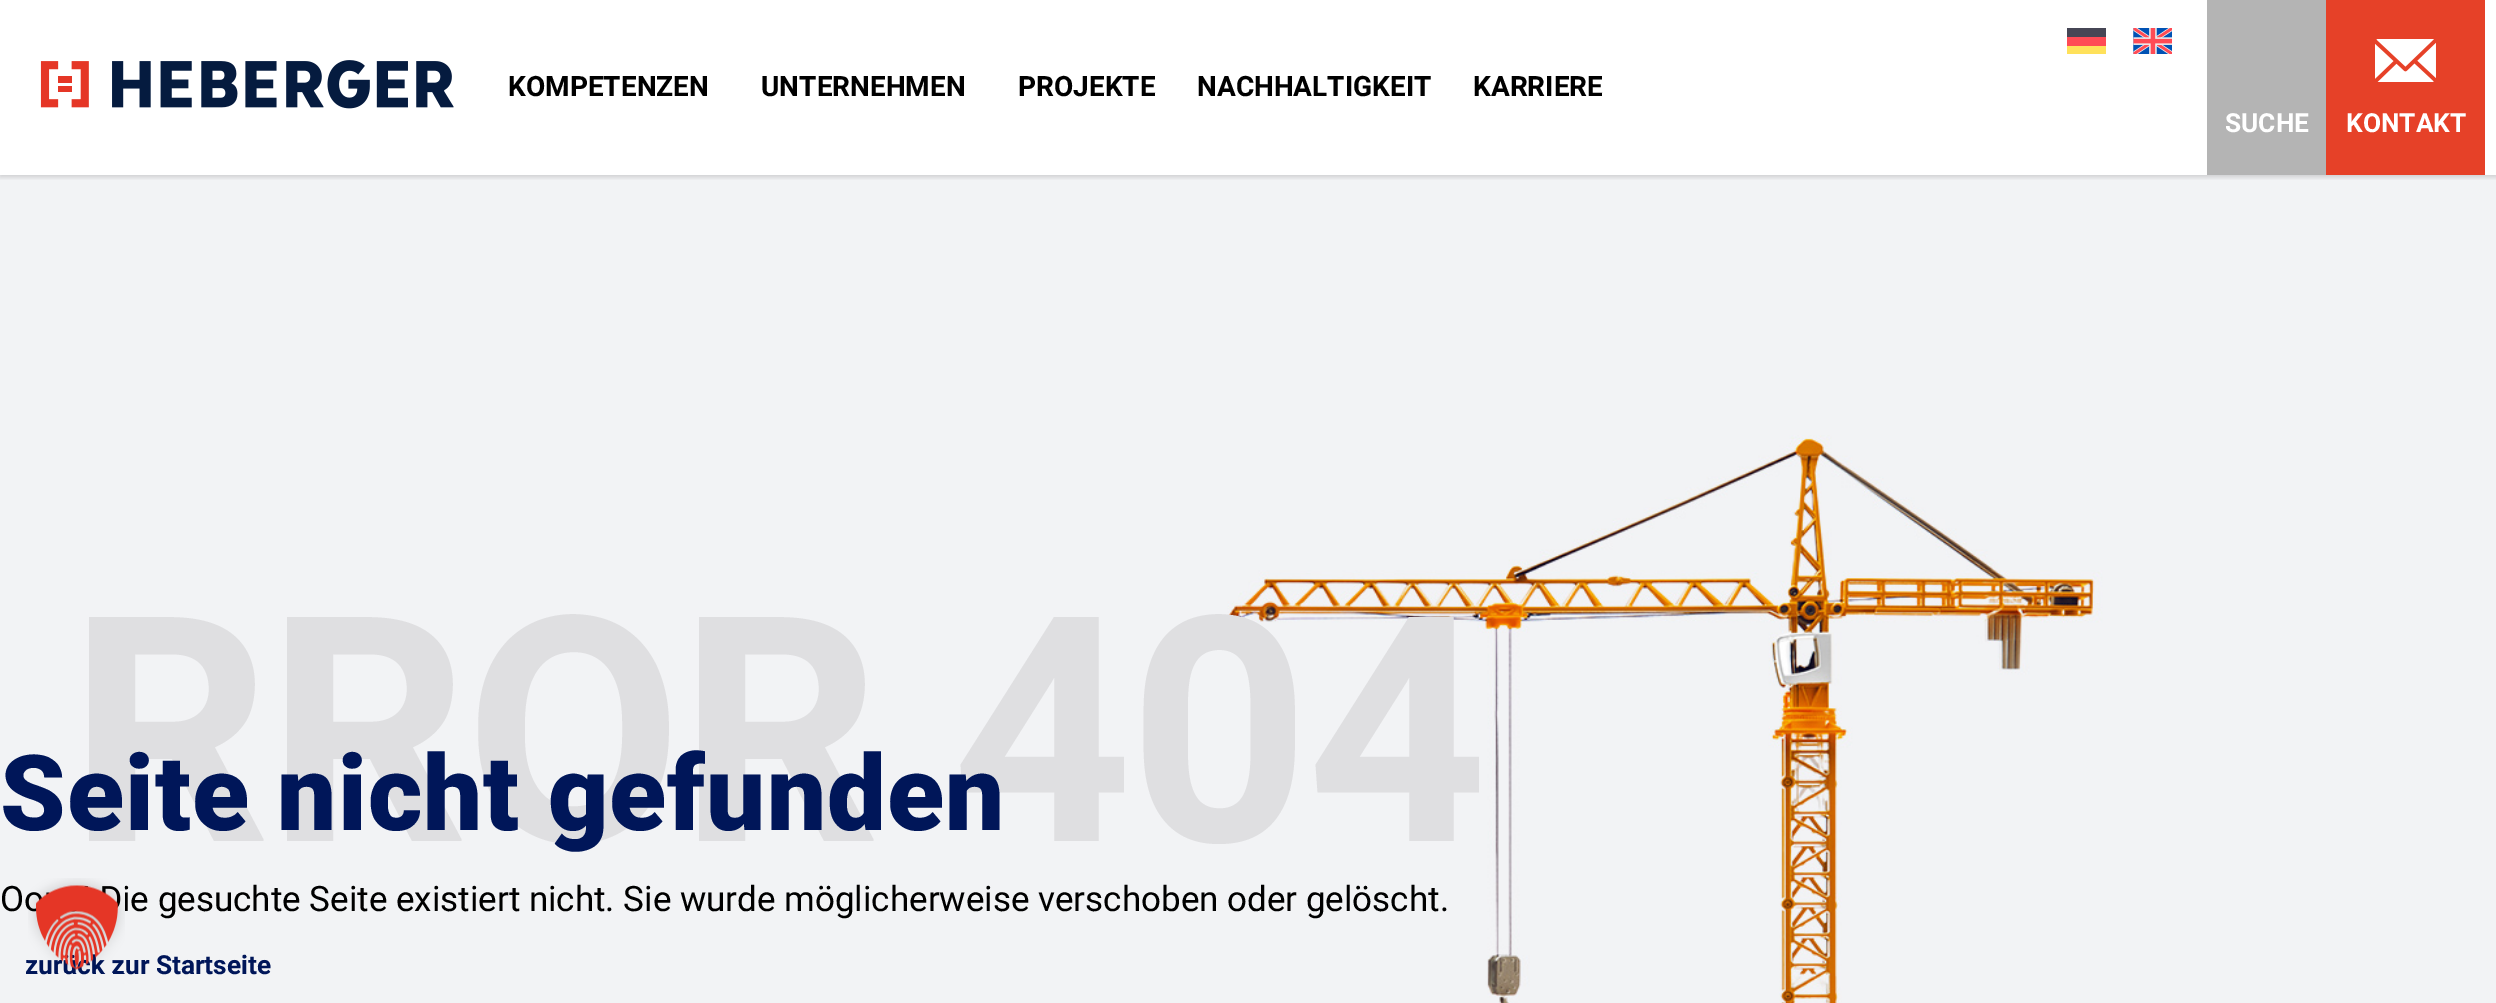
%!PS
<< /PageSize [2496 1003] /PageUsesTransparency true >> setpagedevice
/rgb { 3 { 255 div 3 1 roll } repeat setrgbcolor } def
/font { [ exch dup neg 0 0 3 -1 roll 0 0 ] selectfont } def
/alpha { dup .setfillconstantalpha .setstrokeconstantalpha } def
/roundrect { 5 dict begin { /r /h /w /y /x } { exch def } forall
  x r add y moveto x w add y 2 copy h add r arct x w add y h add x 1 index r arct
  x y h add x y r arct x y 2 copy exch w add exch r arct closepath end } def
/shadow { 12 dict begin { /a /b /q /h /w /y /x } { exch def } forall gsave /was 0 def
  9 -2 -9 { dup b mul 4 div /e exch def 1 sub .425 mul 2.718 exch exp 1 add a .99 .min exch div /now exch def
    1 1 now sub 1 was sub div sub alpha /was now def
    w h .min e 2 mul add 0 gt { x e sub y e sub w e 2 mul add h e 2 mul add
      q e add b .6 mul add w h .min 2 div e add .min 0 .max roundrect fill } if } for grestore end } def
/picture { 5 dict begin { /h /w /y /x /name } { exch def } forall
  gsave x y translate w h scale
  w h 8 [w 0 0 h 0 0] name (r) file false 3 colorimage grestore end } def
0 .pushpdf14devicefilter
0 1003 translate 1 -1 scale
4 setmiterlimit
255 255 255 rgb
0 0 2496 1003 rectfill
(img/4.rgb) 0 175 2496 828 picture
gsave
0 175 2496 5 rectclip
0 0 0 rgb
0 2 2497 175 0 2.5 0.15 shadow
grestore
(img/1.rgb) 40 60 414 49 picture
[
  [2067 37 39 9 255 75 85]
  [2067 46 39 8 255 225 90]
  [2067 28 39 9 70 70 85]
] { aload pop rgb rectfill } forall
(img/2.rgb) 2133 28 39 26 picture
180 180 180 rgb
2207 0 119 175 rectfill
230 65 40 rgb
2326 0 159 175 rectfill
(img/3.rgb) 2375 39 61 43 picture
/Roboto-Bold 28 font
0 0 0 rgb
[
  [(KOMPETENZEN) 508 96]
  [(UNTERNEHMEN) 761 96]
  [(PROJEKTE) 1018 96]
  [(NACHHALTIGKEIT) 1197 96]
  [(KARRIERE) 1473 96]
] { aload pop moveto show } forall
/Roboto-Bold 26.25 font
255 255 255 rgb
2225 132 moveto (SUCHE) show
2346 132 moveto (KONTAKT) show
/Roboto-Bold 315 font
223 223 225 rgb
69 841 moveto -3.25 0 (RROR 404) ashow
/Roboto-Black 105 font
0 22 89 rgb
0 830 moveto 1.05 0 (Seite nicht gefunden) ashow
/Roboto-Regular 35 font
0 0 0 rgb
0 911 moveto (Oo) show
99 911 moveto (Die gesuchte Seite existiert nicht. Sie wurde möglicherweise verschoben oder gelöscht.) show
/Roboto-Bold 26.25 font
0 22 89 rgb
25 974 moveto (zurück zur Startseite) show
(img/5.rgb) 28 878 97 95 picture
.poppdf14devicefilter showpage
